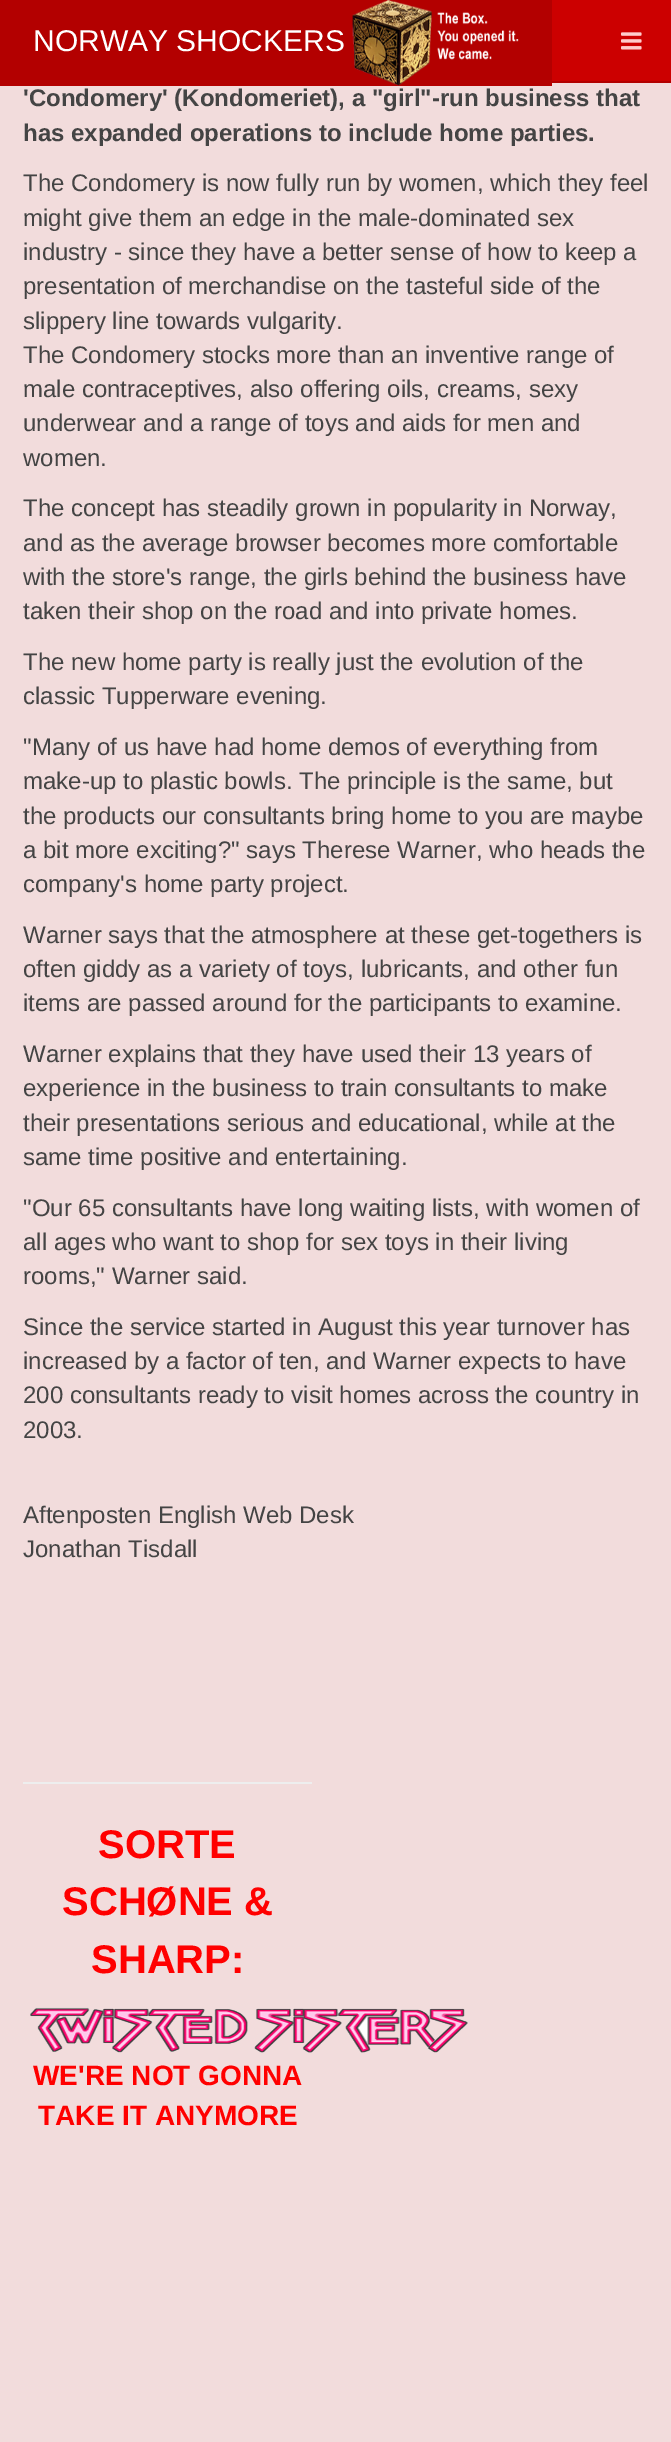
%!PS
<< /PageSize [671 2442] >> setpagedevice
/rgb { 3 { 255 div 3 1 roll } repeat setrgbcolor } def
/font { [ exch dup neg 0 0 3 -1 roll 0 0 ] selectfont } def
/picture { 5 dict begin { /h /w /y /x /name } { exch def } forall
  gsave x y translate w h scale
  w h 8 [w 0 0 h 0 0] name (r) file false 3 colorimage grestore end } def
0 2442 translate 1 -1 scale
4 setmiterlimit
242 220 220 rgb
0 0 671 2442 rectfill
[
  [552 0 119 81 204 0 0]
  [552 81 119 2 179 0 0]
  [0 0 552 86 179 0 0]
] { aload pop rgb rectfill } forall
(img/1.rgb) 352 0 167 86 picture
(img/2.rgb) 621 32 21 18 picture
238 238 238 rgb
23 1782 289 2 rectfill
(img/3.rgb) 30 2007 438 46 picture
/LiberationSans-Regular 30 font
255 255 255 rgb
33 51 moveto (NORWAY SHOCKERS) show
/LiberationSans-Bold 24 font
68 68 68 rgb
23 106 moveto ('Condomery' \(Kondomeriet\), a "girl"-run business that) show
23 141 moveto (has expanded operations to include home parties.) show
/LiberationSans-Regular 24 font
[
  [(The Condomery is now fully run by women, which they feel) 23 191]
  [(might give them an edge in the male-dominated sex) 23 226]
  [(industry - since they have a better sense of how to keep a) 23 260]
  [(presentation of merchandise on the tasteful side of the) 23 294]
  [(slippery line towards vulgarity.) 23 329]
  [(The Condomery stocks more than an inventive range of) 23 363]
  [(male contraceptives, also offering oils, creams, sexy) 23 397]
  [(underwear and a range of toys and aids for men and) 23 431]
  [(women.) 23 466]
  [(The concept has steadily grown in popularity in Norway,) 23 516]
  [(and as the average browser becomes more comfortable) 23 551]
  [(with the store's range, the girls behind the business have) 23 585]
  [(taken their shop on the road and into private homes.) 23 619]
  [(The new home party is really just the evolution of the) 23 670]
  [(classic Tupperware evening.) 23 704]
  [("Many of us have had home demos of everything from) 23 755]
  [(make-up to plastic bowls. The principle is the same, but) 23 789]
  [(the products our consultants bring home to you are maybe) 23 824]
  [(a bit more exciting?" says Therese Warner, who heads the) 23 858]
  [(company's home party project.) 23 892]
  [(Warner says that the atmosphere at these get-togethers is) 23 943]
  [(often giddy as a variety of toys, lubricants, and other fun) 23 977]
  [(items are passed around for the participants to examine.) 23 1011]
  [(Warner explains that they have used their 13 years of) 23 1062]
  [(experience in the business to train consultants to make) 23 1096]
  [(their presentations serious and educational, while at the) 23 1131]
  [(same time positive and entertaining.) 23 1165]
  [("Our 65 consultants have long waiting lists, with women of) 23 1216]
  [(all ages who want to shop for sex toys in their living) 23 1250]
  [(rooms," Warner said.) 23 1284]
  [(Since the service started in August this year turnover has) 23 1335]
  [(increased by a factor of ten, and Warner expects to have) 23 1369]
  [(200 consultants ready to visit homes across the country in) 23 1403]
  [(2003.) 23 1438]
  [(Aftenposten English Web Desk) 23 1523]
  [(Jonathan Tisdall) 23 1557]
] { aload pop moveto show } forall
/LiberationSans-Bold 40 font
255 0 0 rgb
[
  [(SORTE) 98 1858]
  [(SCHØNE &) 62 1915]
  [(SHARP:) 91 1973]
] { aload pop moveto show } forall
/LiberationSans-Bold 28 font
33 2085 moveto (WE'RE NOT GONNA) show
38 2125 moveto (TAKE IT ANYMORE) show
showpage
